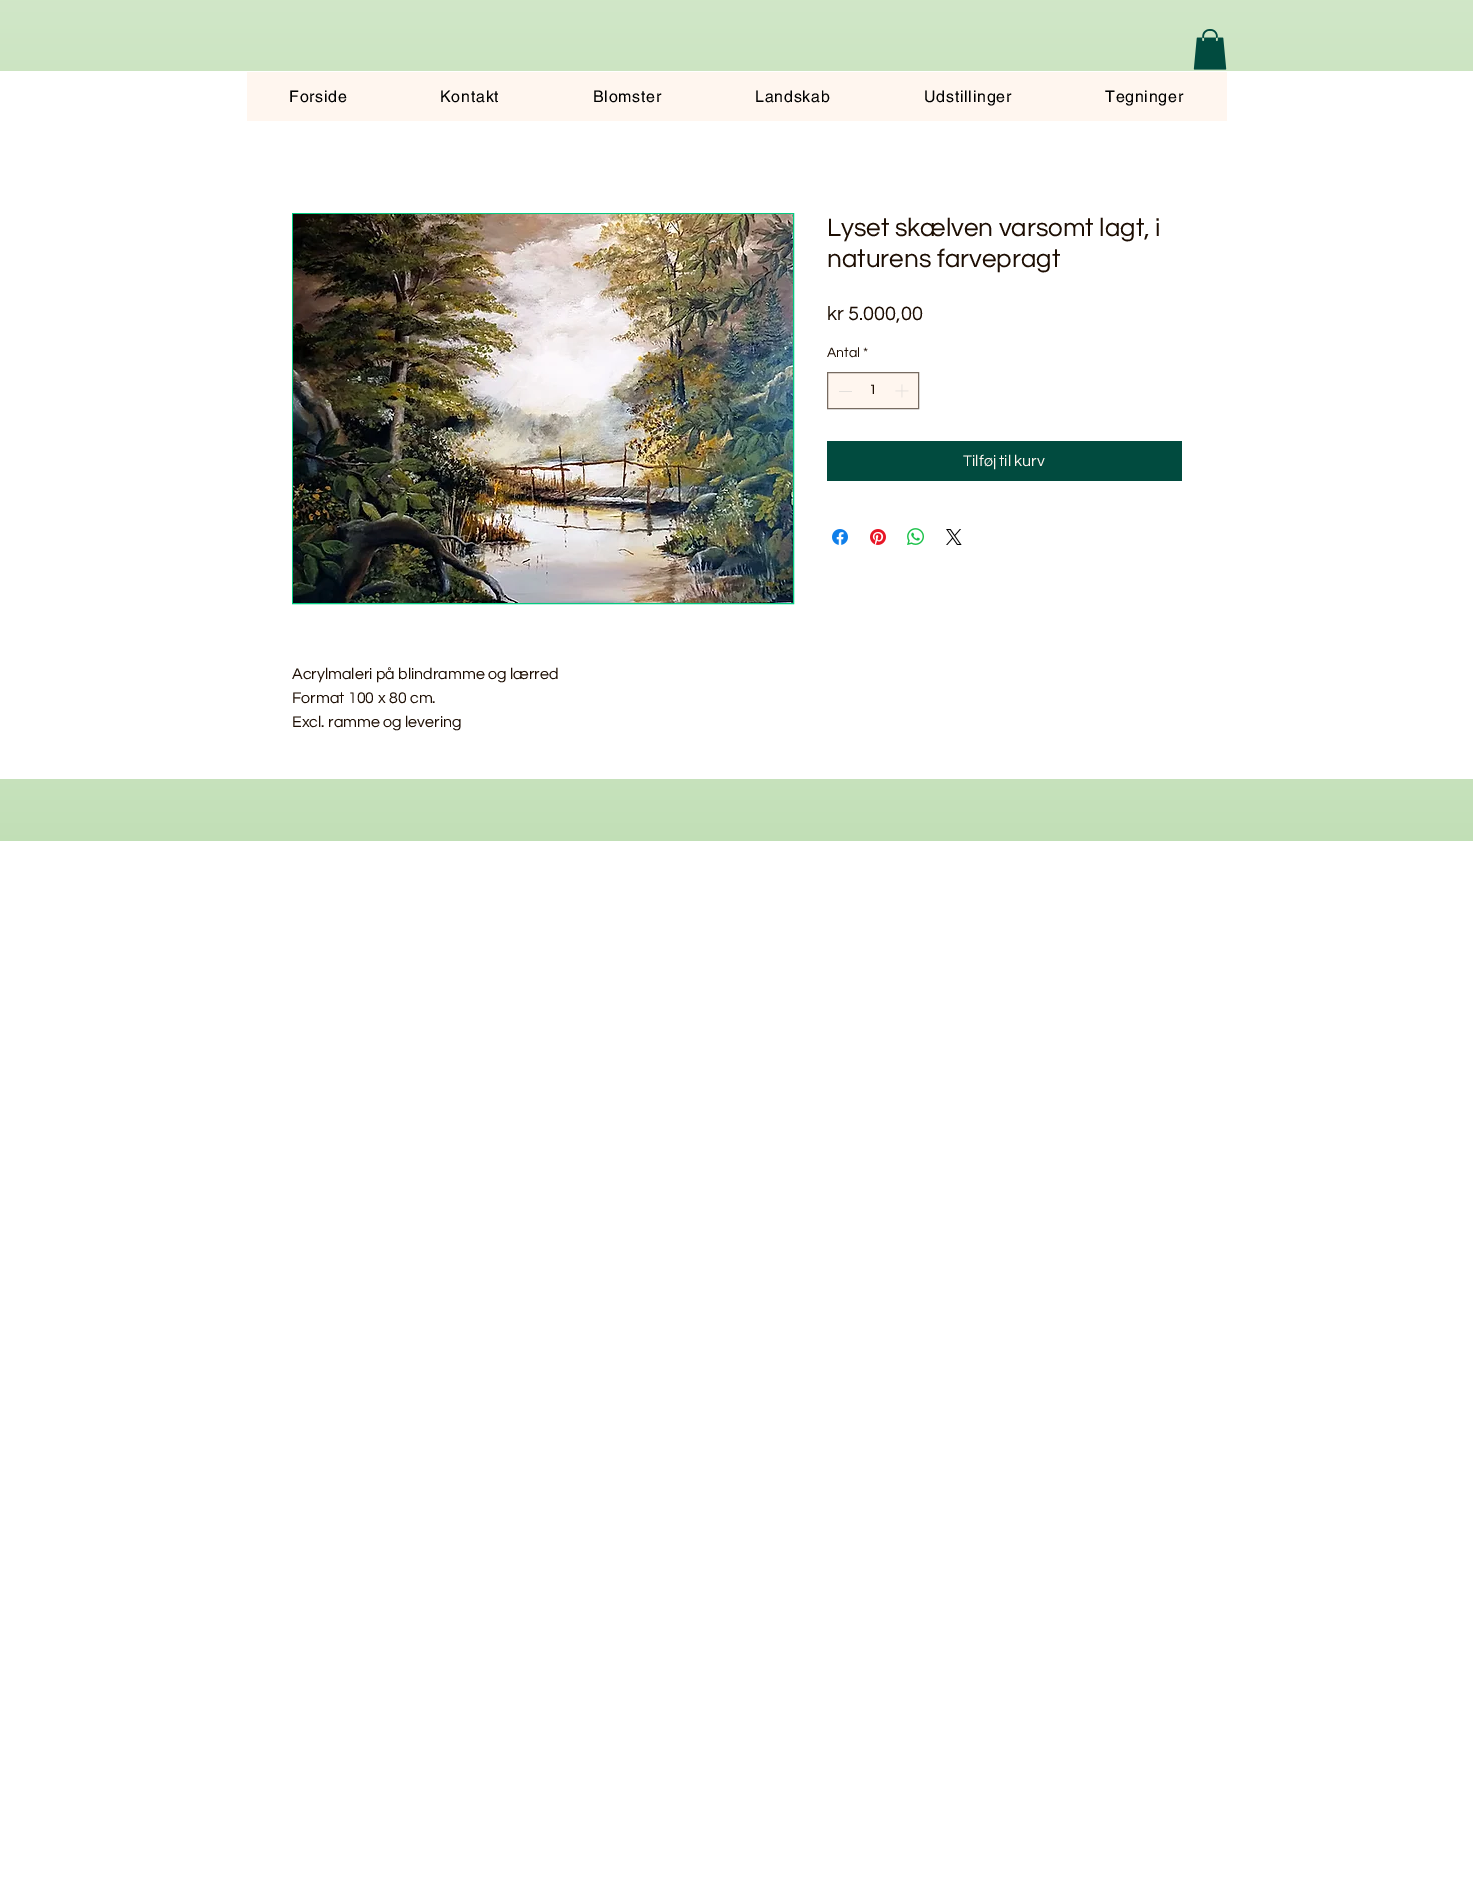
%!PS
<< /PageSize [1473 1892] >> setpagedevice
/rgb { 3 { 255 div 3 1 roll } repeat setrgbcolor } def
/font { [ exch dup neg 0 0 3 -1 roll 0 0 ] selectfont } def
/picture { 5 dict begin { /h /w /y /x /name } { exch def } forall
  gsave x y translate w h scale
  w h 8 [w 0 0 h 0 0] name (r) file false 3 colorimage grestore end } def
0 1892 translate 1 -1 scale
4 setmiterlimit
255 255 255 rgb
0 0 1473 1892 rectfill
192 222 180 rgb
0 0 1473 71 rectfill
(img/1.rgb) 0 0 1473 71 picture
(img/2.rgb) 1193 29 34 41 picture
255 246 239 rgb
247 72 980 49 rectfill
827.5 372.5 moveto 918.5 372.5 lineto 918.5 408.5 lineto 827.5 408.5 lineto closepath gsave fill grestore
119 107 97 rgb
stroke
227 223 219 rgb
839 391 13 1 rectfill
(img/3.rgb) 895 384 14 14 picture
1 75 63 rgb
827 441 355 40 rectfill
(img/4.rgb) 832 529 16 16 picture
(img/5.rgb) 870 529 16 16 picture
(img/6.rgb) 907 528 17 17 picture
(img/7.rgb) 946 529 16 16 picture
2 202 129 rgb
292.5 213.5 501 390 rectstroke
(img/8.rgb) 293 214 500 389 picture
178 215 164 rgb
0 779 1473 62 rectfill
(img/9.rgb) 0 779 1473 62 picture
/helvetica-Regular 16 font
0 0 0 rgb
289 102 moveto 0.75 0 (Forside) ashow
440 102 moveto 0.75 0 (Kontakt) ashow
593 102 moveto 0.75 0 (Blomster) ashow
755 102 moveto 0.75 0 (Landskab) ashow
924 102 moveto 0.75 0 (Udstillinger) ashow
1105 102 moveto 0.75 0 (Tegninger) ashow
/Questrial-Regular 26 font
29 14 3 rgb
827 236 moveto (Lyset skælven varsomt lagt, i) show
827 267 moveto (naturens farvepragt) show
/Questrial-Regular 20 font
827 320 moveto (kr 5.000,00) show
/Questrial-Regular 14 font
[
  [(Antal) 827 357]
  [(*) 863 357]
  [(1) 869 394]
] { aload pop moveto show } forall
/Questrial-Regular 16 font
255 246 239 rgb
963 466 moveto (Tilføj til kurv) show
29 14 3 rgb
[
  [(Acrylmaleri på blindramme og lærred) 292 679]
  [(Format 100 x 80 cm.) 292 703]
  [(Excl. ramme og levering) 292 727]
] { aload pop moveto show } forall
showpage
